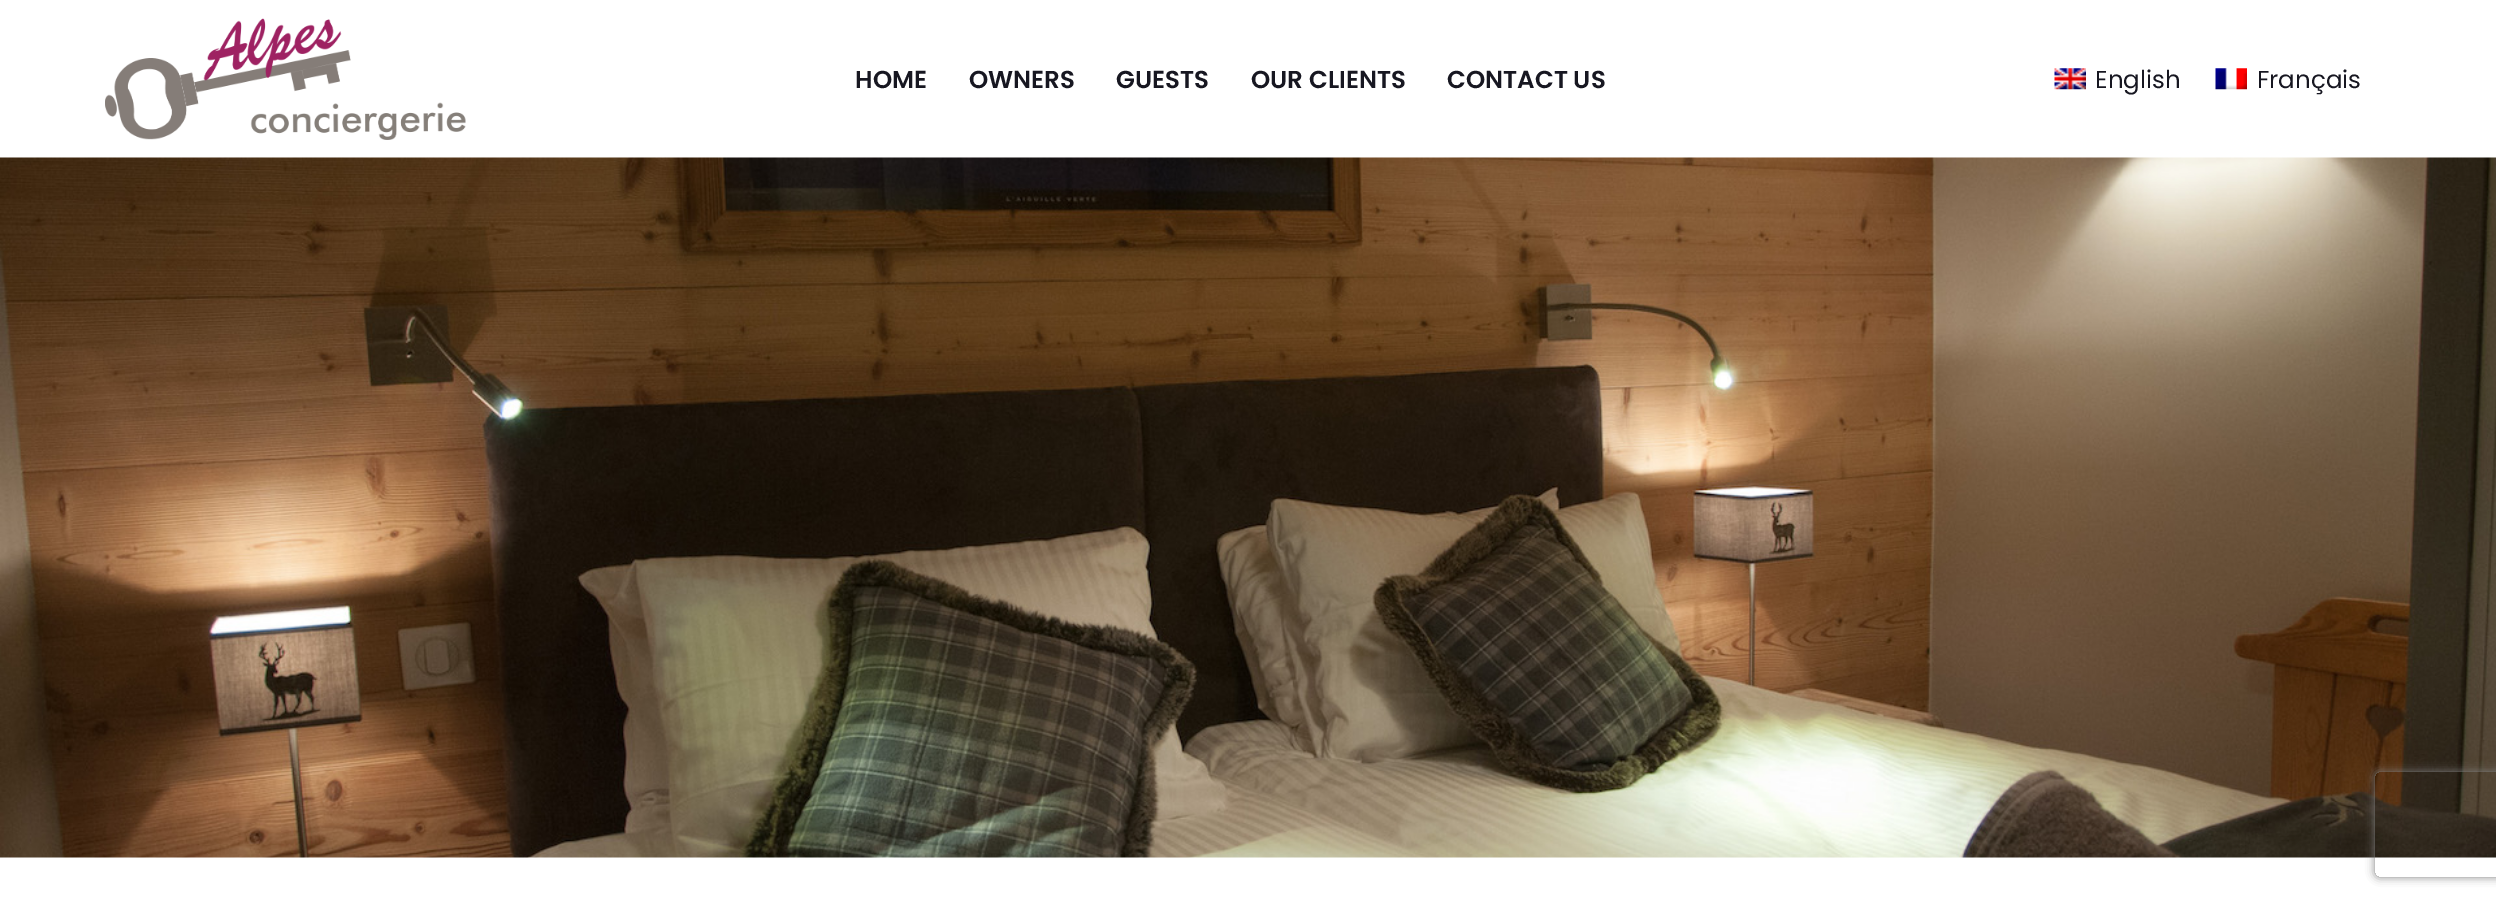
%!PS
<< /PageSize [2496 901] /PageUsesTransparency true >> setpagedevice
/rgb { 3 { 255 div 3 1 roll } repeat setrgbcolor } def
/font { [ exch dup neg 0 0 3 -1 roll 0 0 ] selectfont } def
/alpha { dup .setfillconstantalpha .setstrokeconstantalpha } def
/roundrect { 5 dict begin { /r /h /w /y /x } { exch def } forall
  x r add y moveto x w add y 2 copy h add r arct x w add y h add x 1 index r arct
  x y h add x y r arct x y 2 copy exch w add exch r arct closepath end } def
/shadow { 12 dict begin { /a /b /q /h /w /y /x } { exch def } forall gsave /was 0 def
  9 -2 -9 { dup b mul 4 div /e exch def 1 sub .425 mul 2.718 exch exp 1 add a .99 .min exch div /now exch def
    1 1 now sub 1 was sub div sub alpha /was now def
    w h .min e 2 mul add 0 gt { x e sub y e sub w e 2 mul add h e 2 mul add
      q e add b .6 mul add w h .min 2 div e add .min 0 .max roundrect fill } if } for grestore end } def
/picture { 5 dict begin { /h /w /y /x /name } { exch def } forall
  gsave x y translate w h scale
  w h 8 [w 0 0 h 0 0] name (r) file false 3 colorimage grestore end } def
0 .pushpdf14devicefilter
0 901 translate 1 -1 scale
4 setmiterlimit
255 255 255 rgb
0 0 2496 901 rectfill
(img/1.rgb) 105 18 361 122 picture
(img/2.rgb) 2054 68 32 22 picture
(img/3.rgb) 2215 68 32 22 picture
(img/4.rgb) 0 157 2496 701 picture
gsave
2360 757 moveto 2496 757 lineto 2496 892 lineto 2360 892 lineto closepath 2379 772 moveto 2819 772 lineto 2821 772 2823 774 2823 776 curveto 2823 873 lineto 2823 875 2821 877 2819 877 curveto 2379 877 lineto 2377 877 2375 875 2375 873 curveto 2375 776 lineto 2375 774 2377 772 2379 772 curveto closepath eoclip newpath
128 128 128 rgb
2375 772 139 105 4 4.5 1 shadow
grestore
/Poppins-SemiBold 24.5 font
23 23 33 rgb
[
  [(HOME) 855 88]
  [(OWNERS) 969 88]
  [(GUESTS) 1116 88]
  [(OUR CLIENTS) 1251 88]
  [(CONTACT US) 1447 88]
] { aload pop moveto show } forall
/Poppins-Regular 24.5 font
2095 88 moveto (English) show
2257 88 moveto (Français) show
.poppdf14devicefilter showpage
